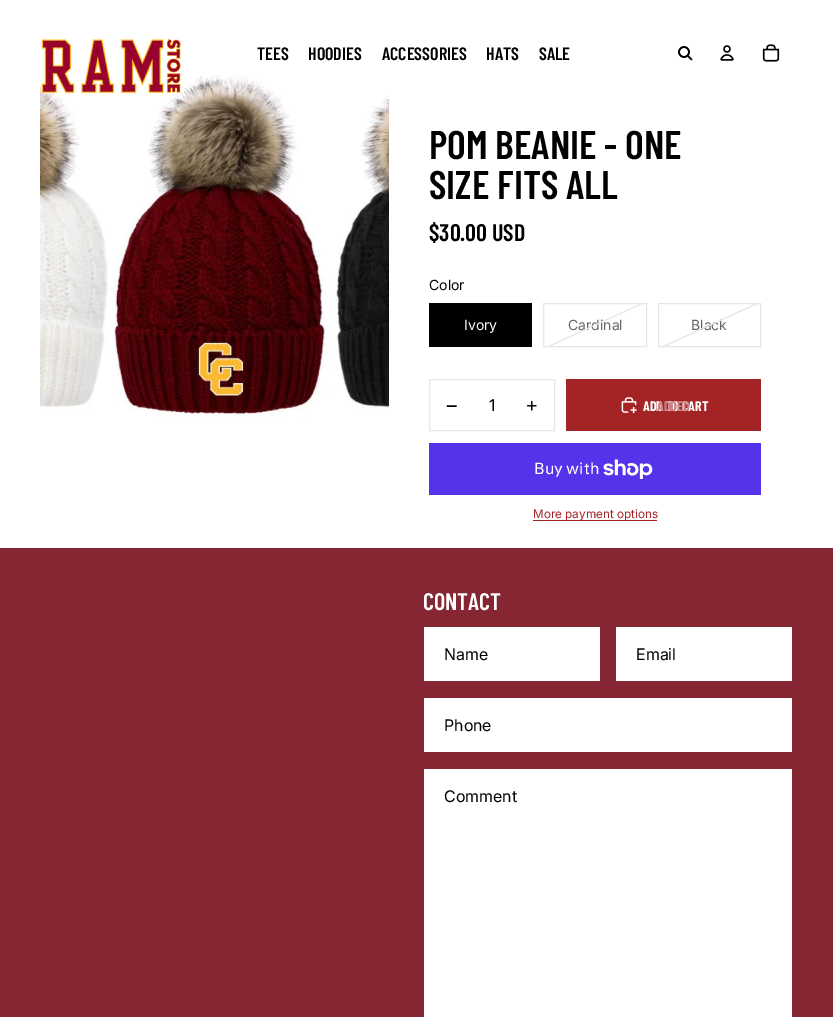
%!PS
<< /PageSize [833 1017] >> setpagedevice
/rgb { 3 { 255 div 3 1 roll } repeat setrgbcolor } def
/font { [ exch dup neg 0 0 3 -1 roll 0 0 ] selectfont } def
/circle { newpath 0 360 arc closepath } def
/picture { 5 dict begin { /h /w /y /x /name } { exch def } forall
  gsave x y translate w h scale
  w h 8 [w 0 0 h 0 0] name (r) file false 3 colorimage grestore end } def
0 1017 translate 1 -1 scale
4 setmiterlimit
255 255 255 rgb
0 0 833 1017 rectfill
(img/4.rgb) 40 74 349 345 picture
(img/1.rgb) 41 38 140 56 picture
0 0 0 rgb
1.7 setlinewidth
684 52 5 circle stroke
1 setlinecap
1 setlinejoin
688 56 moveto 691.5 59.5 lineto stroke
(img/2.rgb) 720 45 14 16 picture
(img/3.rgb) 762 44 18 18 picture
429 303 103 44 rectfill
230 230 230 rgb
1 setlinewidth
0 setlinecap
0 setlinejoin
543.5 303.5 103 43 rectstroke
658.5 303.5 102 43 rectstroke
429.5 379.5 125 51 rectstroke
0 0 0 rgb
1.5 setlinewidth
1 setlinecap
447.5 406 moveto 456 406 lineto stroke
(img/5.rgb) 526 400 11 11 picture
164 35 37 rgb
566 379 195 52 rectfill
(img/6.rgb) 621 397 16 17 picture
84 51 235 rgb
429 443 332 52 rectfill
(img/7.rgb) 603 459 50 20 picture
[
  [533 520 124 1 164 35 37]
  [0 548 833 469 134 38 51]
  [424 627 176 54 255 255 255]
  [616 627 176 54 255 255 255]
  [424 698 368 54 255 255 255]
  [424 769 368 248 255 255 255]
] { aload pop rgb rectfill } forall
/BarlowCondensed-SemiBold 18 font
0 0 0 rgb
[
  [(TEES) 257 60]
  [(HOODIES) 308 60]
  [(ACCESSORIES) 382 60]
  [(HATS) 486 60]
  [(SALE) 539 60]
] { aload pop moveto show } forall
/BarlowCondensed-SemiBold 40 font
429 159 moveto (POM BEANIE - ONE) show
429 199 moveto (SIZE FITS ALL) show
/BarlowCondensed-SemiBold 24 font
429 241 moveto ($30.00 USD) show
/Inter-Regular 14 font
429 290 moveto (Color) show
255 255 255 rgb
464 330 moveto (Ivory) show
102 102 102 rgb
568 330 moveto (Cardinal) show
gsave
544 304 102 42 rectclip
230 230 230 rgb
1 setlinewidth
0 setlinecap
645.5 302 moveto 544 348.5 lineto stroke
grestore
691 330 moveto (Black) show
gsave
659 304 101 42 rectclip
230 230 230 rgb
1 setlinewidth
0 setlinecap
760.5 302 moveto 659 348.5 lineto stroke
grestore
/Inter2-Regular 16 font
0 0 0 rgb
489 411 moveto (1) show
/BarlowCondensed-Bold 14 font
255 255 255 rgb
643 411 moveto (ADD TO CART) show
205 134 135 rgb
657 411 moveto (ADDED) show
/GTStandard-Regular 16 font
255 255 255 rgb
534 474 moveto (Buy with) show
/Inter-Regular 11.75 font
164 35 37 rgb
533 518 moveto (More payment options) show
/BarlowCondensed-SemiBold 24 font
255 255 255 rgb
423 610 moveto (CONTACT) show
/Inter2-Regular 16 font
0 0 0 rgb
[
  [(Name) 444 660]
  [(Email) 636 660]
  [(Phone) 444 731]
  [(Comment) 444 802]
] { aload pop moveto show } forall
showpage
